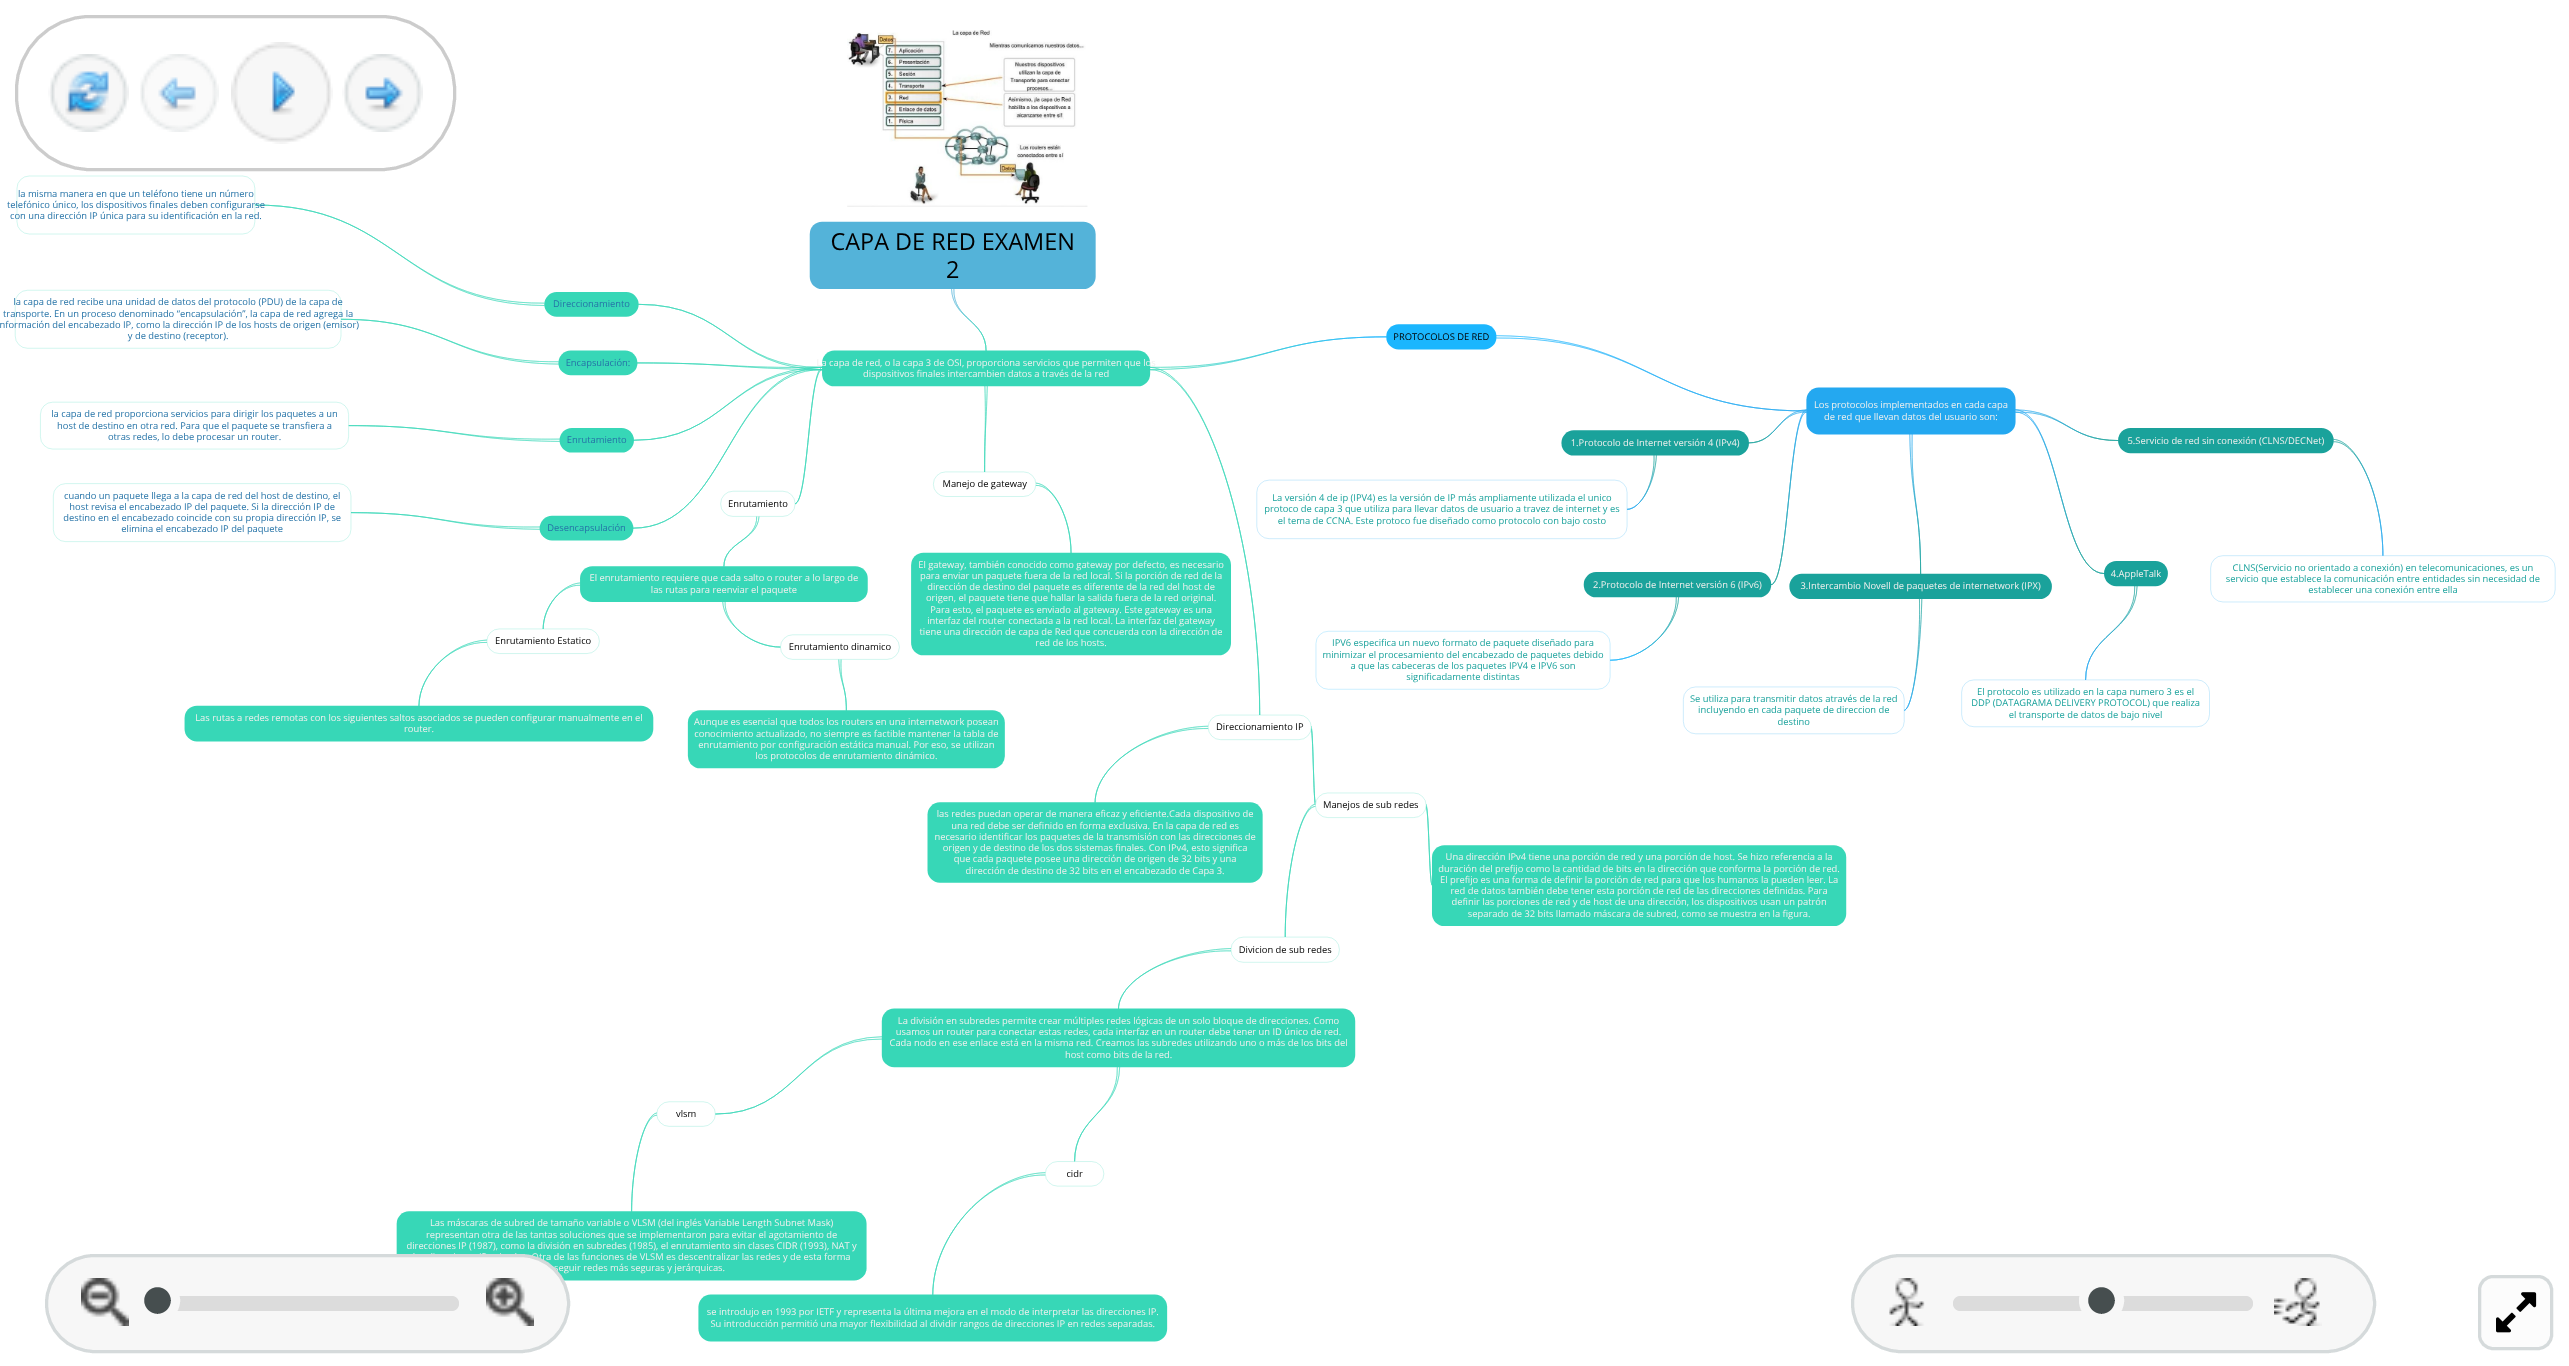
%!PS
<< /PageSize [2569 1366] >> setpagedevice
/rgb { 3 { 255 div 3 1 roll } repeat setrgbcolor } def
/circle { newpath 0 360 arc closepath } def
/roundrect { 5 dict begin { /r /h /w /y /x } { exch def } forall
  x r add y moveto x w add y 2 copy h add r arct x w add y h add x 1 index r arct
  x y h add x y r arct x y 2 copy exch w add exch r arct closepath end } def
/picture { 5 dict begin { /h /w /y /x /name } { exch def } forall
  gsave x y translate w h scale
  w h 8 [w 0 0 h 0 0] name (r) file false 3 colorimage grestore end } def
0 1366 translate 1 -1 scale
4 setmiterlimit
255 255 255 rgb
0 0 2569 1366 rectfill
(img/5.rgb) 0 30 2556 1312 picture
204 204 204 rgb
3 setlinewidth
16.5 16.5 438 153 73.5 roundrect stroke
(img/1.rgb) 48 54 81 78 picture
(img/2.rgb) 140 54 79 78 picture
(img/3.rgb) 231 42 102 102 picture
(img/4.rgb) 342 54 81 78 picture
247 247 247 rgb
46.5 1255.5 522 96 48 roundrect gsave fill grestore
213 218 219 rgb
stroke
(img/6.rgb) 81 1278 48 48 picture
220 220 220 rgb
159 1296 300 15 7.5 roundrect fill
70 78 79 rgb
157.5 1300.5 18 circle gsave fill grestore
247 247 247 rgb
9 setlinewidth
stroke
(img/7.rgb) 486 1278 48 48 picture
1852.5 1255.5 522 96 48 roundrect gsave fill grestore
213 218 219 rgb
3 setlinewidth
stroke
(img/8.rgb) 1889 1278 36 48 picture
220 220 220 rgb
1953 1296 300 15 7.5 roundrect fill
70 78 79 rgb
2101.5 1300.5 18 circle gsave fill grestore
247 247 247 rgb
9 setlinewidth
stroke
(img/9.rgb) 2274 1278 48 48 picture
252 252 252 rgb
2479.5 1276.5 72 72 13.5 roundrect gsave fill grestore
213 218 219 rgb
3 setlinewidth
stroke
(img/10.rgb) 2496 1292 41 41 picture
showpage
